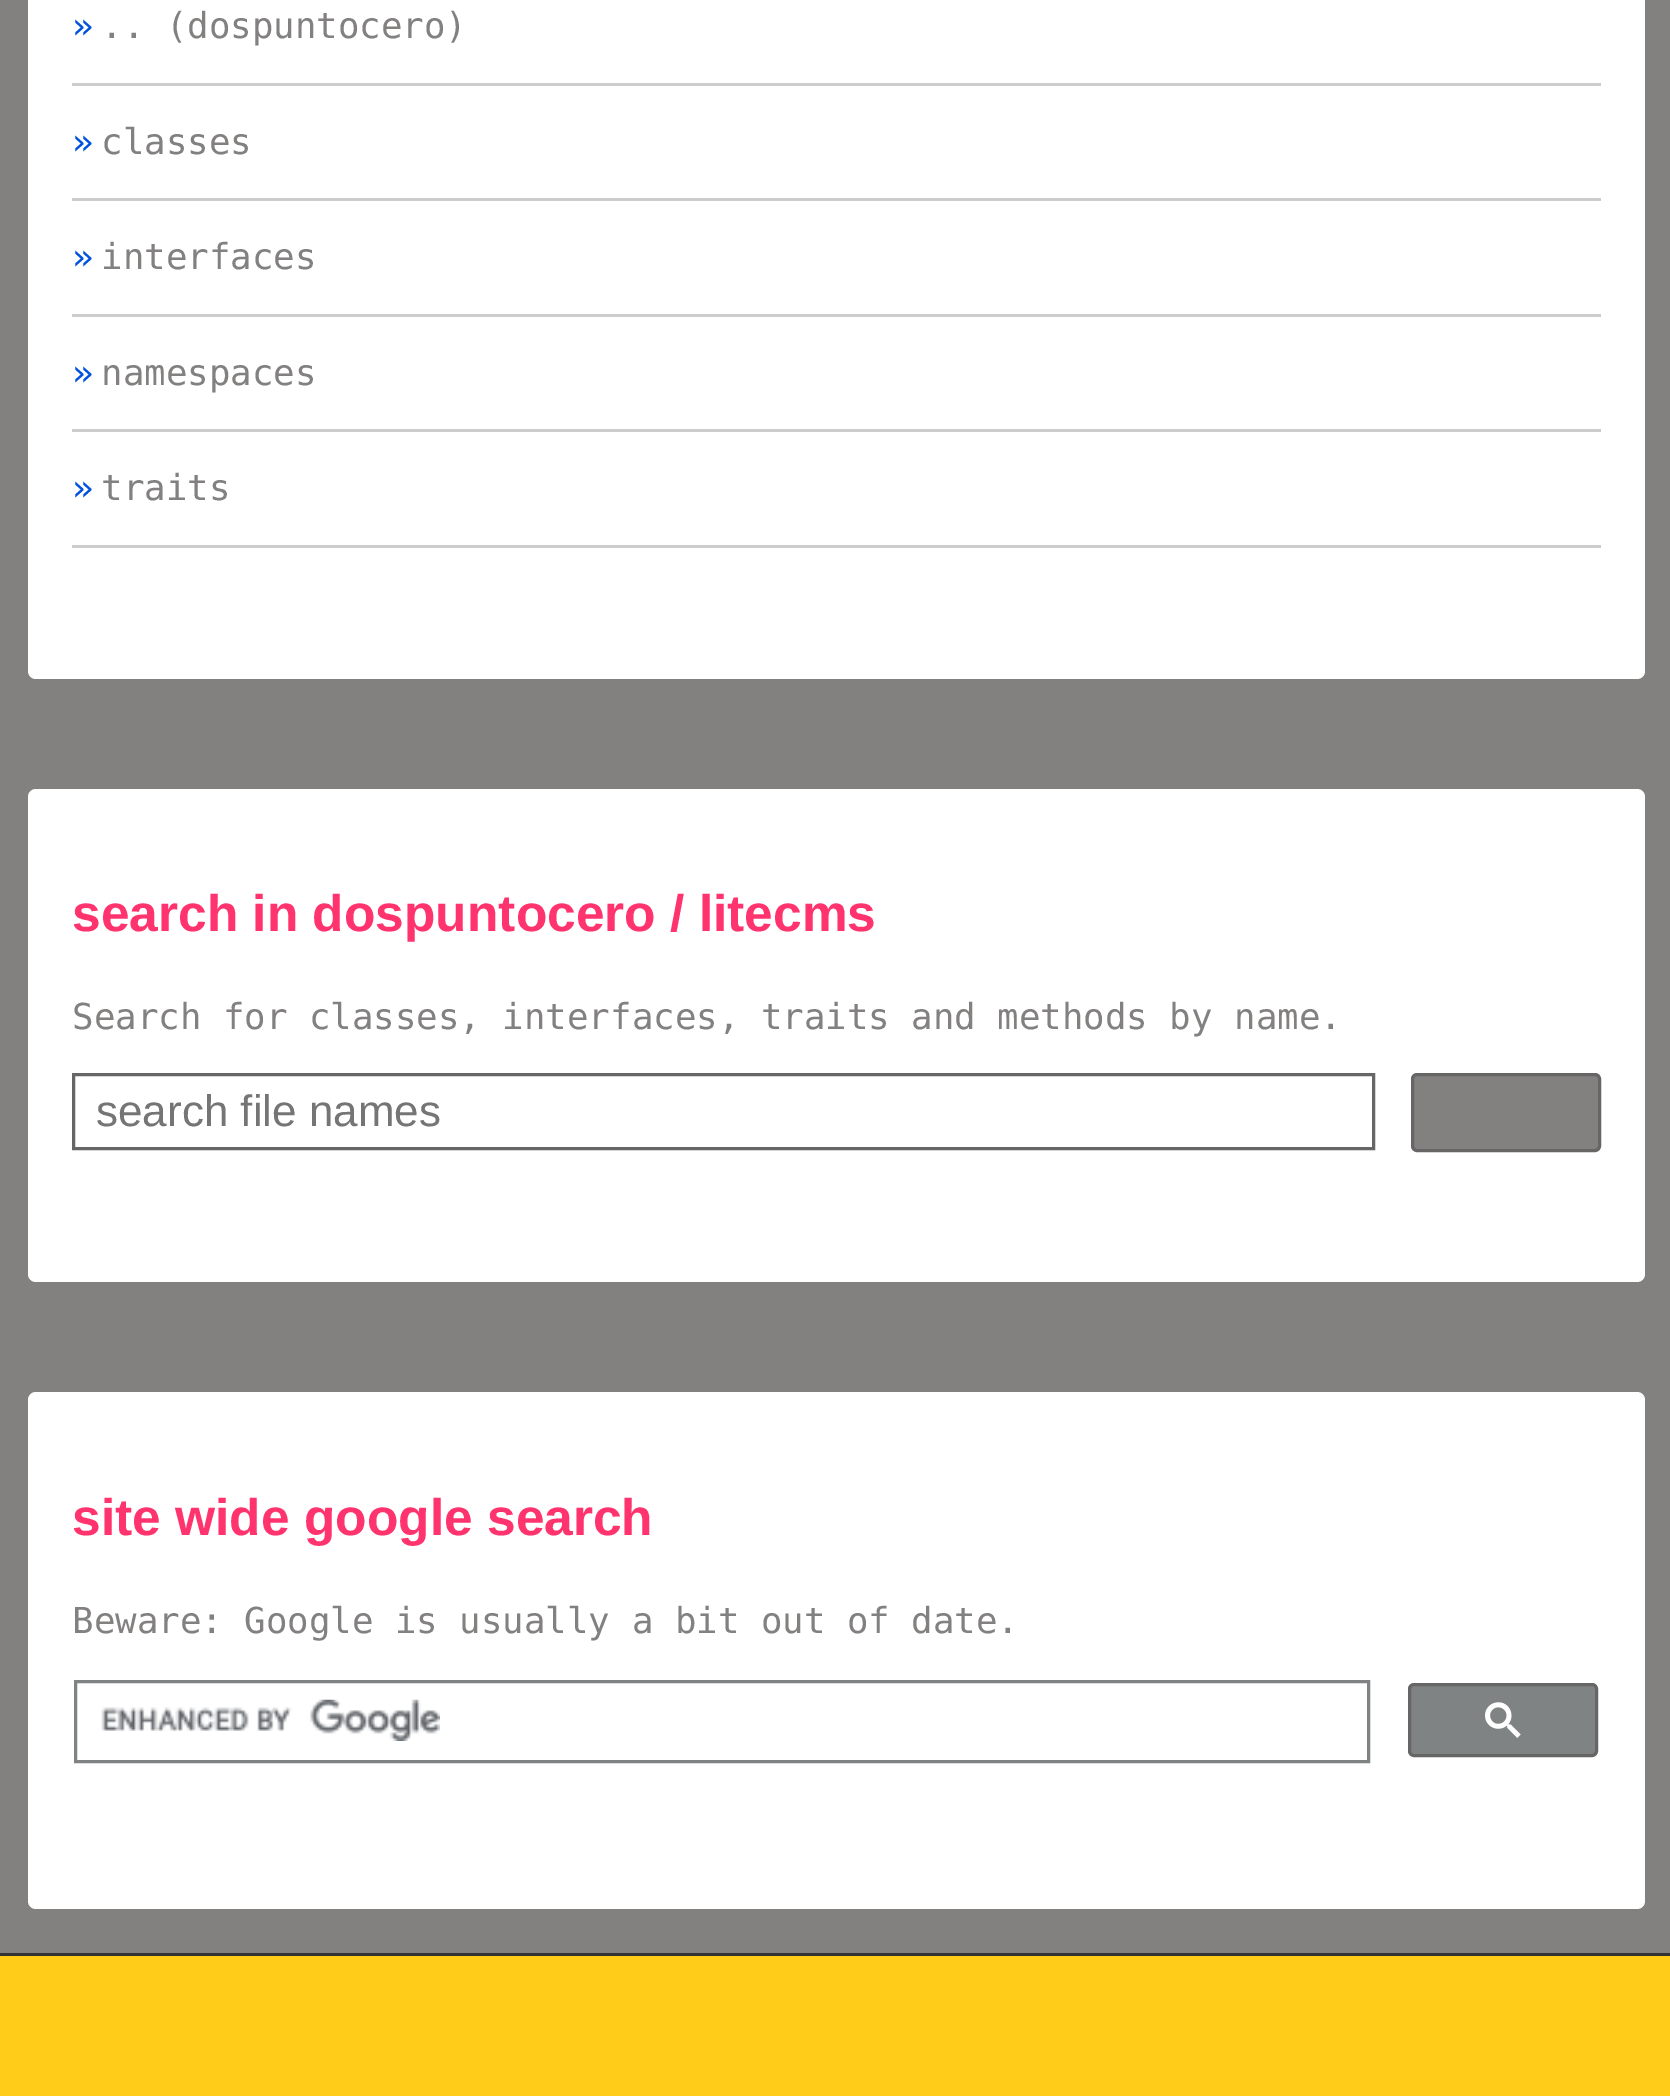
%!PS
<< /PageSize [1670 2096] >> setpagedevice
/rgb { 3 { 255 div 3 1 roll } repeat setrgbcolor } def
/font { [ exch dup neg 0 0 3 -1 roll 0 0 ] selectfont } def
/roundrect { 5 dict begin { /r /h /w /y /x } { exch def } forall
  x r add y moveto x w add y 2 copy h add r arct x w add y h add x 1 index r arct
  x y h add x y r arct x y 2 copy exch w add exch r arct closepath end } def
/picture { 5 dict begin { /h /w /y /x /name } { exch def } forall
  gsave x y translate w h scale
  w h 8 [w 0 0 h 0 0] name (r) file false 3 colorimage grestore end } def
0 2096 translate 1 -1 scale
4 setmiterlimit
131 128 128 rgb
0 0 1670 2096 rectfill
255 255 255 rgb
28 -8 1617 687 8 roundrect fill
[
  [72 83 1529 3 204 204 204]
  [72 198 1529 3 204 204 204]
  [72 314 1529 3 204 204 204]
  [72 429 1529 3 204 204 204]
  [72 545 1529 3 204 204 204]
] { aload pop rgb rectfill } forall
255 255 255 rgb
28 789 1617 493 8 roundrect fill
102 102 102 rgb
3 setlinewidth
73.5 1074.5 1300 74 rectstroke
131 128 128 rgb
1412.5 1074.5 187 76 4.5 roundrect gsave fill grestore
102 102 102 rgb
stroke
255 255 255 rgb
28 1392 1617 517 8 roundrect fill
128 131 131 rgb
75.5 1681.5 1293 80 rectstroke
(img/1.rgb) 101 1699 339 42 picture
1409.5 1684.5 187 71 4.5 roundrect gsave fill grestore
102 102 102 rgb
stroke
(img/2.rgb) 1485 1702 36 36 picture
255 204 26 rgb
0 1956 1670 140 rectfill
51 51 51 rgb
0 1953 1670 3 rectfill
/DejaVuSansMono-Regular 35.75 font
0 81 220 rgb
72 38 moveto (») show
131 128 128 rgb
101 38 moveto (.. \(dospuntocero\)) show
0 81 220 rgb
72 154 moveto (») show
131 128 128 rgb
101 154 moveto (classes) show
0 81 220 rgb
72 269 moveto (») show
131 128 128 rgb
101 269 moveto (interfaces) show
0 81 220 rgb
72 385 moveto (») show
131 128 128 rgb
101 385 moveto (namespaces) show
0 81 220 rgb
72 500 moveto (») show
131 128 128 rgb
101 500 moveto (traits) show
/LiberationSans-Bold 51.5 font
255 51 109 rgb
72 931 moveto (search in dospuntocero / litecms) show
/DejaVuSansMono-Regular 35.75 font
131 128 128 rgb
72 1029 moveto (Search for classes, interfaces, traits and methods by name.) show
/LiberationSans-Regular 44 font
117 117 117 rgb
96 1126 moveto (search file names) show
/LiberationSans-Bold 51.5 font
255 51 109 rgb
72 1535 moveto (site wide google search) show
/DejaVuSansMono-Regular 35.75 font
131 128 128 rgb
72 1633 moveto (Beware: Google is usually a bit out of date.) show
showpage
